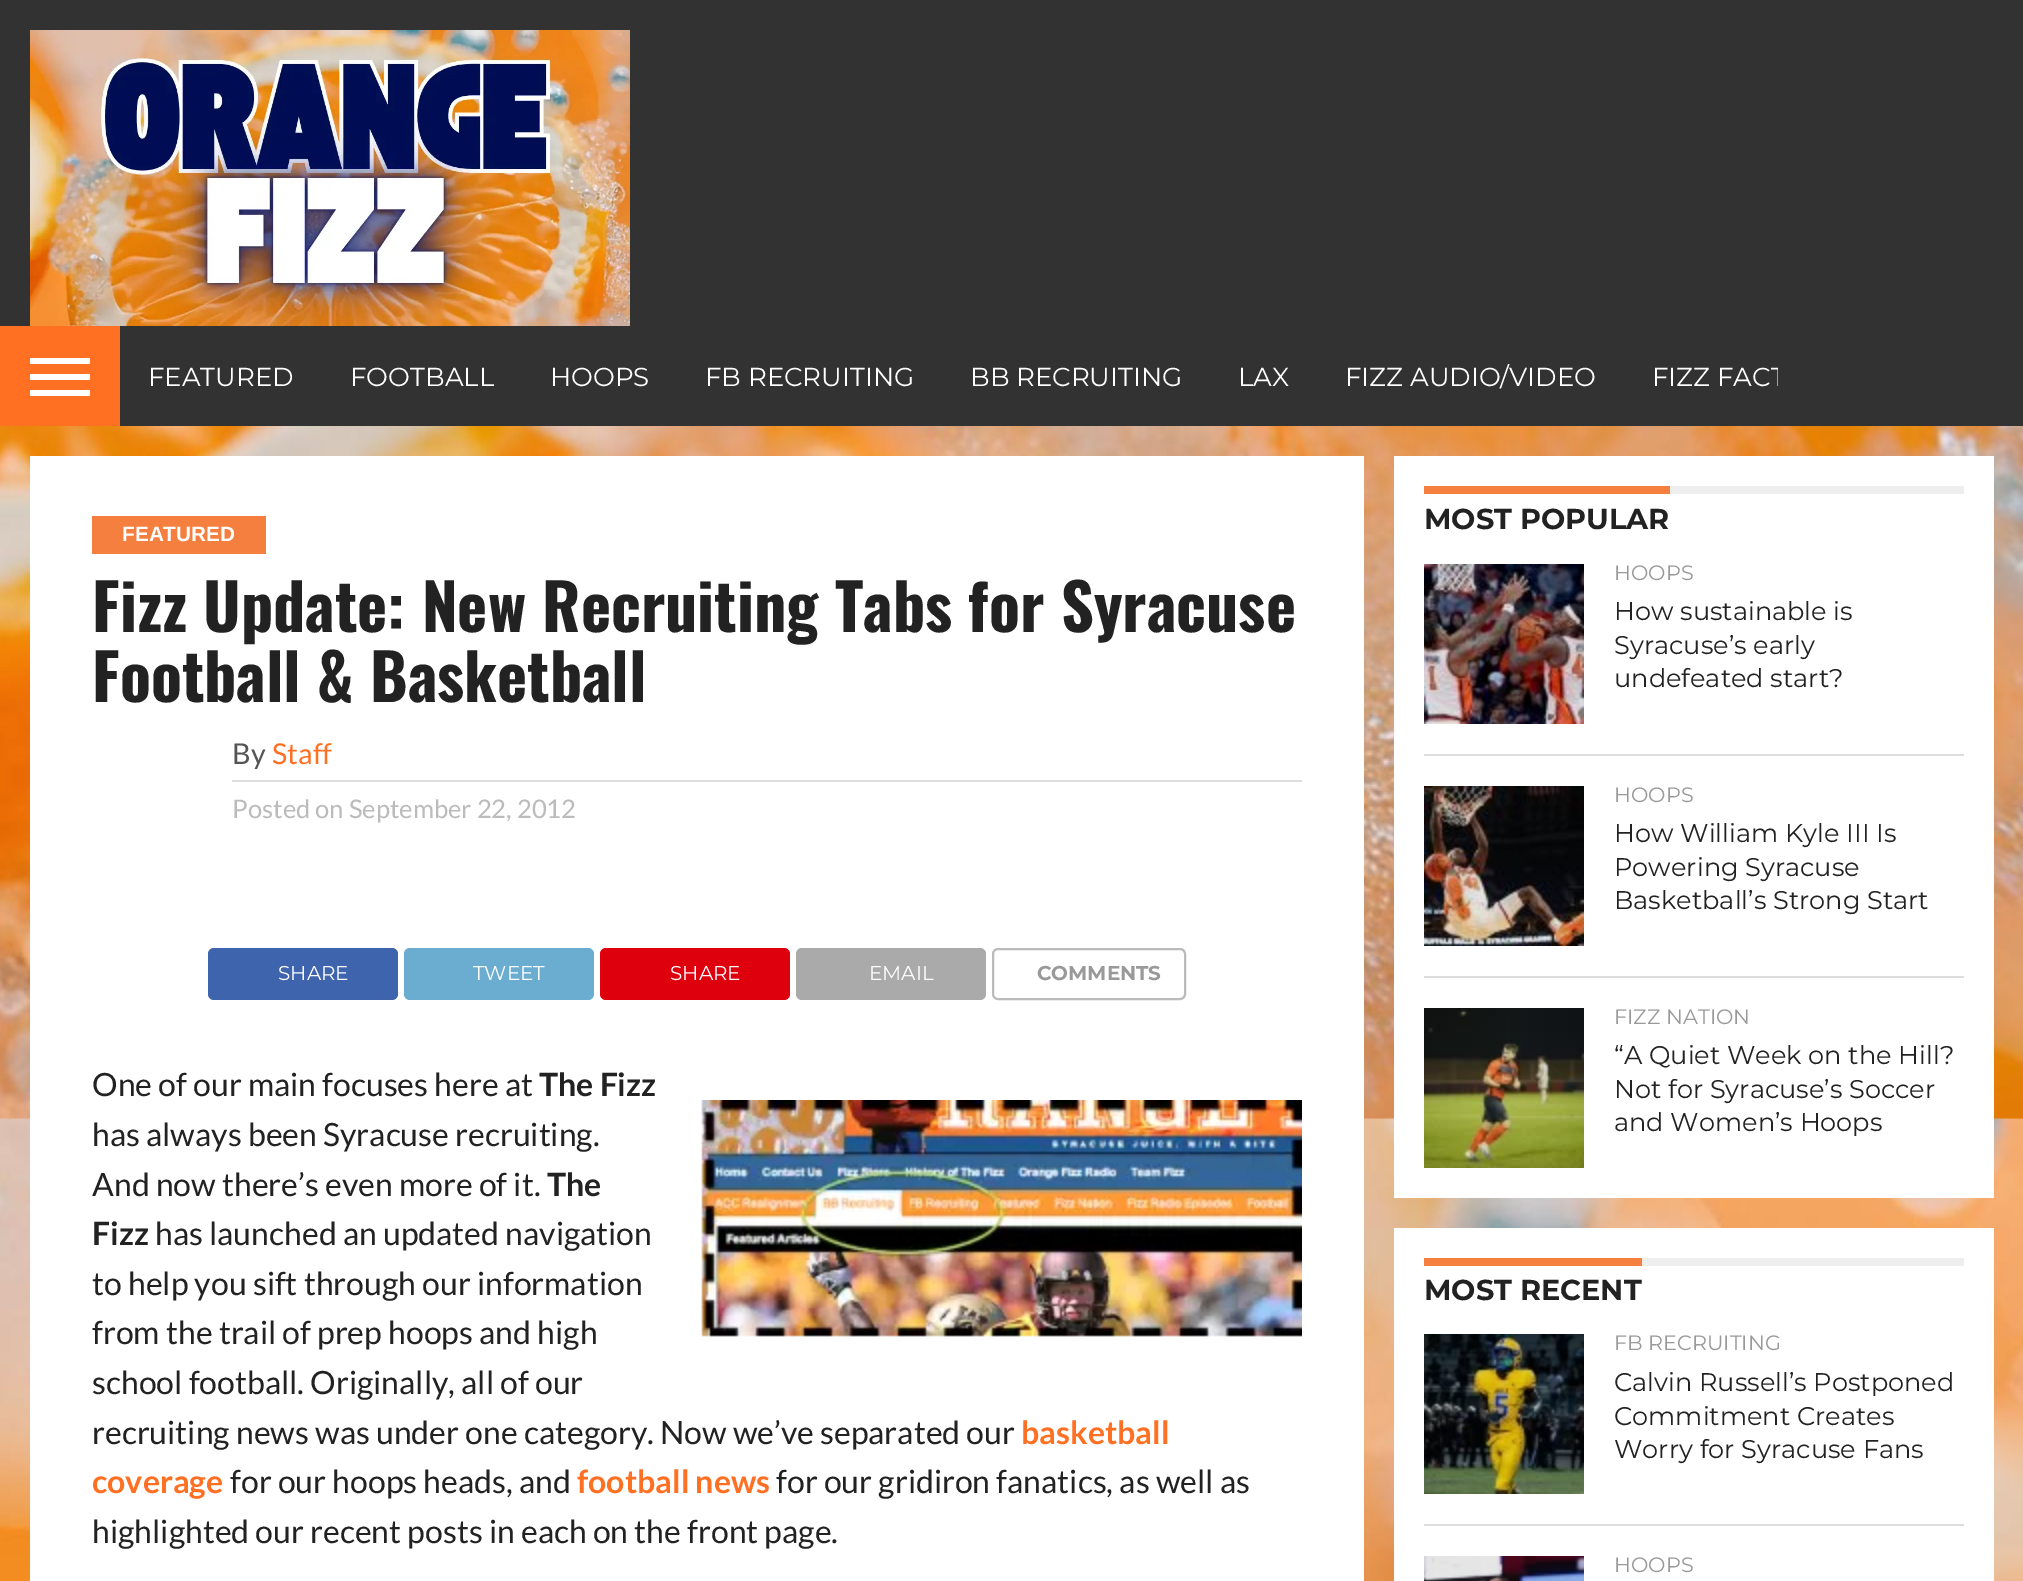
%!PS
<< /PageSize [2023 1581] >> setpagedevice
/rgb { 3 { 255 div 3 1 roll } repeat setrgbcolor } def
/font { [ exch dup neg 0 0 3 -1 roll 0 0 ] selectfont } def
/roundrect { 5 dict begin { /r /h /w /y /x } { exch def } forall
  x r add y moveto x w add y 2 copy h add r arct x w add y h add x 1 index r arct
  x y h add x y r arct x y 2 copy exch w add exch r arct closepath end } def
/picture { 5 dict begin { /h /w /y /x /name } { exch def } forall
  gsave x y translate w h scale
  w h 8 [w 0 0 h 0 0] name (r) file false 3 colorimage grestore end } def
0 1581 translate 1 -1 scale
4 setmiterlimit
255 255 255 rgb
0 0 2023 1581 rectfill
(img/1.rgb) 0 426 2023 1155 picture
50 50 51 rgb
0 0 2023 326 rectfill
(img/2.rgb) 30 30 600 296 picture
[
  [120 326 1658 100 50 50 51]
  [0 326 120 100 255 112 35]
  [30 358 60 6 255 255 255]
  [30 374 60 6 255 255 255]
  [30 390 60 6 255 255 255]
  [30 456 1334 1125 255 255 255]
  [92 516 174 38 245 127 63]
  [232 780 1070 2 221 221 221]
] { aload pop rgb rectfill } forall
62 100 173 rgb
208 948 190 52 6 roundrect fill
106 173 209 rgb
404 948 190 52 6 roundrect fill
222 1 13 rgb
600 948 190 52 6 roundrect fill
170 170 170 rgb
796 948 190 52 6 roundrect fill
187 187 187 rgb
2 setlinewidth
993 949 192 50 5 roundrect stroke
(img/3.rgb) 701 1100 601 237 picture
[
  [1394 456 600 742 255 255 255]
  [1670 486 294 8 238 238 238]
  [1424 486 246 8 245 127 63]
] { aload pop rgb rectfill } forall
(img/4.rgb) 1424 564 160 160 picture
221 221 221 rgb
1424 754 540 2 rectfill
(img/5.rgb) 1424 786 160 160 picture
1424 976 540 2 rectfill
(img/6.rgb) 1424 1008 160 160 picture
[
  [1394 1228 600 353 255 255 255]
  [1642 1258 322 8 238 238 238]
  [1424 1258 218 8 245 127 63]
] { aload pop rgb rectfill } forall
(img/7.rgb) 1424 1334 160 160 picture
221 221 221 rgb
1424 1524 540 2 rectfill
(img/8.rgb) 1424 1556 160 25 picture
/Montserrat-Regular 26 font
255 255 255 rgb
[
  [(FEATURED) 148 386]
  [(FOOTBALL) 350 386]
  [(HOOPS) 550 386]
  [(FB RECRUITING) 705 386]
  [(BB RECRUITING) 970 386]
  [(LAX) 1238 386]
  [(FIZZ AUDIO/VIDEO) 1345 386]
  [(FIZZ FACT) 1652 386]
] { aload pop moveto show } forall
50 50 51 rgb
1778 326 245 100 rectfill
/LiberationSans-Bold 20.75 font
255 255 255 rgb
122 541 moveto (FEATURED) show
/Oswald-Bold 64 font
34 34 34 rgb
92 632 moveto (Fizz Update: New Recruiting Tabs for Syracuse) show
92 702 moveto (Football & Basketball) show
/Lato-Regular 28.75 font
85 85 85 rgb
232 764 moveto (By) show
255 112 35 rgb
272 764 moveto (Staff) show
/Lato-Regular 25.6 font
187 187 187 rgb
232 818 moveto (Posted on September 22, 2012) show
/Montserrat-Regular 20 font
255 255 255 rgb
[
  [(SHARE) 278 980]
  [(TWEET) 473 980]
  [(SHARE) 670 980]
  [(EMAIL) 869 980]
] { aload pop moveto show } forall
/Montserrat-Bold 20 font
153 153 153 rgb
1037 980 moveto (COMMENTS) show
/Lato-Regular 32 font
34 34 34 rgb
92 1096 moveto (One of our main focuses here at) show
/Lato-Bold 32 font
539 1096 moveto (The Fizz) show
/Lato-Regular 32 font
92 1146 moveto (has always been Syracuse recruiting.) show
92 1196 moveto (And now there’s even more of it.) show
/Lato-Bold 32 font
547 1196 moveto (The) show
92 1245 moveto (Fizz) show
/Lato-Regular 32 font
[
  [(has launched an updated navigation) 155 1245]
  [(to help you sift through our information) 92 1295]
  [(from the trail of prep hoops and high) 92 1344]
  [(school football. Originally, all of our) 92 1394]
  [(recruiting news was under one category. Now we’ve separated our) 92 1444]
] { aload pop moveto show } forall
/Lato-Bold 32 font
255 112 35 rgb
1021 1444 moveto (basketball) show
92 1493 moveto (coverage) show
/Lato-Regular 32 font
34 34 34 rgb
230 1493 moveto (for our hoops heads, and) show
/Lato-Bold 32 font
255 112 35 rgb
577 1493 moveto (football news) show
/Lato-Regular 32 font
34 34 34 rgb
776 1493 moveto (for our gridiron fanatics, as well as) show
92 1543 moveto (highlighted our recent posts in each on the front page.) show
/Montserrat-Bold 28.75 font
1424 529 moveto (MOST POPULAR) show
/Montserrat-Regular 20.75 font
153 153 153 rgb
1614 580 moveto (HOOPS) show
/Montserrat-Regular 25.6 font
34 34 34 rgb
[
  [(How sustainable is) 1614 620]
  [(Syracuse’s early) 1614 654]
  [(undefeated start?) 1614 687]
] { aload pop moveto show } forall
/Montserrat-Regular 20.75 font
153 153 153 rgb
1614 802 moveto (HOOPS) show
/Montserrat-Regular 25.6 font
34 34 34 rgb
[
  [(How William Kyle III Is) 1614 842]
  [(Powering Syracuse) 1614 876]
  [(Basketball’s Strong Start) 1614 909]
] { aload pop moveto show } forall
/Montserrat-Regular 20.75 font
153 153 153 rgb
1614 1024 moveto (FIZZ NATION) show
/Montserrat-Regular 25.6 font
34 34 34 rgb
[
  [(“A Quiet Week on the Hill?) 1614 1064]
  [(Not for Syracuse’s Soccer) 1614 1098]
  [(and Women’s Hoops) 1614 1131]
] { aload pop moveto show } forall
/Montserrat-Bold 28.75 font
1424 1300 moveto (MOST RECENT) show
/Montserrat-Regular 20.75 font
153 153 153 rgb
1614 1350 moveto (FB RECRUITING) show
/Montserrat-Regular 25.6 font
34 34 34 rgb
[
  [(Calvin Russell’s Postponed) 1614 1391]
  [(Commitment Creates) 1614 1425]
  [(Worry for Syracuse Fans) 1614 1458]
] { aload pop moveto show } forall
/Montserrat-Regular 20.75 font
153 153 153 rgb
1614 1572 moveto (HOOPS) show
showpage
